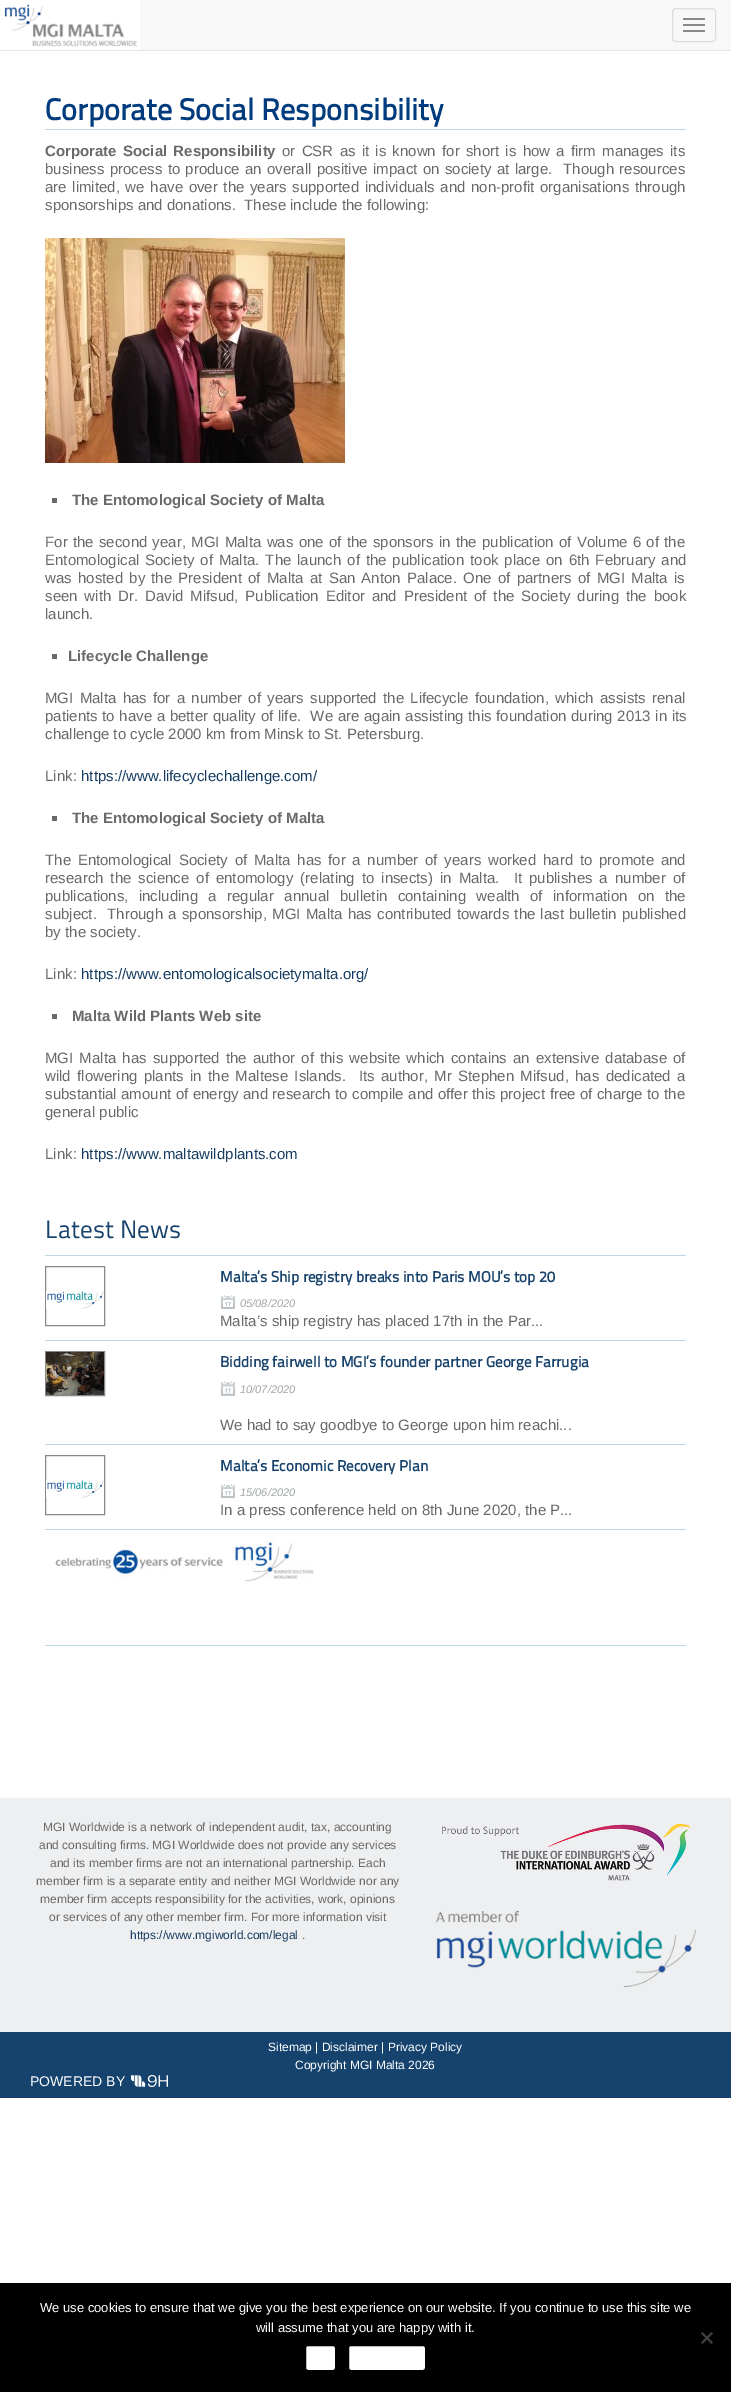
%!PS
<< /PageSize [731 2392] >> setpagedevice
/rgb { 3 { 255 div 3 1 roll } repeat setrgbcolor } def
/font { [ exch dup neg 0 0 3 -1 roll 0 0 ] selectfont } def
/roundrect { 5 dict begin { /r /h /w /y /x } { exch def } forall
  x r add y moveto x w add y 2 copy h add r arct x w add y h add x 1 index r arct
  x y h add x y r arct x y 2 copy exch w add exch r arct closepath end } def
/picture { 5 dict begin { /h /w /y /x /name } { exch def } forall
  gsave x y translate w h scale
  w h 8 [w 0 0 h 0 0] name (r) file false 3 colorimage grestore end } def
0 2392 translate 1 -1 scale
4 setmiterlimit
255 255 255 rgb
0 0 731 2392 rectfill
248 248 248 rgb
0 0 731 50 rectfill
231 231 231 rgb
0 50 731 1 rectfill
(img/1.rgb) 0 0 140 50 picture
221 221 221 rgb
672.5 8.5 43 33 3.5 roundrect stroke
136 136 136 rgb
683 18 22 2 1 roundrect fill
683 24 22 2 1 roundrect fill
683 30 22 2 1 roundrect fill
188 217 236 rgb
45 129 641 1 rectfill
(img/2.rgb) 45 238 300 225 picture
[
  [52 498 5 5 105 105 105]
  [52 654 5 5 105 105 105]
  [52 816 5 5 105 105 105]
  [52 1014 5 5 105 105 105]
  [45 1255 641 1 188 217 236]
  [45 1340 641 1 188 217 236]
] { aload pop rgb rectfill } forall
136 136 136 rgb
45.5 1266.5 59 59 rectstroke
(img/3.rgb) 46 1291 58 18 picture
(img/4.rgb) 220 1294 16 16 picture
188 217 236 rgb
45 1444 641 1 rectfill
136 136 136 rgb
45.5 1351.5 59 44 rectstroke
(img/5.rgb) 46 1352 58 43 picture
(img/6.rgb) 220 1380 16 17 picture
45.5 1455.5 59 59 rectstroke
(img/3.rgb) 46 1480 58 18 picture
(img/4.rgb) 220 1483 16 16 picture
188 217 236 rgb
45 1529 641 1 rectfill
(img/7.rgb) 55 1540 259 42 picture
[
  [45 1645 641 1 188 217 236]
  [0 2032 731 66 22 67 109]
  [0 1798 731 234 238 239 240]
] { aload pop rgb rectfill } forall
(img/8.rgb) 442 1824 249 57 picture
(img/9.rgb) 436 1911 260 76 picture
(img/10.rgb) 131 2075 37 12 picture
0 0 0 rgb
0 2283 731 109 rectfill
64 64 64 rgb
711.5 2332 moveto 713 2333.5 lineto 702.5 2344 lineto 701 2342.5 lineto closepath fill
701 2333.5 moveto 702.5 2332 lineto 713 2342.5 lineto 711.5 2344 lineto closepath fill
255 255 255 rgb
305 2345 31 26 3 roundrect gsave fill grestore
0 0 0 rgb
2 setlinewidth
stroke
255 255 255 rgb
348 2345 78 26 3 roundrect gsave fill grestore
0 0 0 rgb
stroke
/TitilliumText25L-Bold 30 font
0 59 125 rgb
45 120 moveto (Corporate Social Responsibility) show
/LiberationSans-Bold 15 font
105 105 105 rgb
45 156 moveto 2.1 0 32 (Corporate Social Responsibility) widthshow
/LiberationSans-Regular 15 font
282 156 moveto 2.1 0 32 (or CSR as it is known for short is how a firm manages its) widthshow
45 174 moveto 1.25 0 32 (business process to produce an overall positive impact on society at large.  Though resources) widthshow
45 192 moveto 1.5 0 32 (are limited, we have over the years supported individuals and non-profit organisations through) widthshow
45 210 moveto (sponsorships and donations.  These include the following:) show
/LiberationSans-Bold 15 font
72 505 moveto (The Entomological Society of Malta) show
/LiberationSans-Regular 15 font
45 547 moveto 1.1 0 32 (For the second year, MGI Malta was one of the sponsors in the publication of Volume 6 of the) widthshow
45 565 moveto 1.75 0 32 (Entomological Society of Malta. The launch of the publication took place on 6th February and) widthshow
45 583 moveto 2.1 0 32 (was hosted by the President of Malta at San Anton Palace. One of partners of MGI Malta is) widthshow
45 601 moveto 2.75 0 32 (seen with Dr. David Mifsud, Publication Editor and President of the Society during the book) widthshow
45 619 moveto (launch.) show
/LiberationSans-Bold 15 font
68 661 moveto (Lifecycle Challenge) show
/LiberationSans-Regular 15 font
45 703 moveto 2.1 0 32 (MGI Malta has for a number of years supported the Lifecycle foundation, which assists renal) widthshow
45 721 moveto 0.5 0 32 (patients to have a better quality of life.  We are again assisting this foundation during 2013 in its) widthshow
45 739 moveto (challenge to cycle 2000 km from Minsk to St. Petersburg.) show
45 781 moveto (Link:) show
22 60 97 rgb
81 781 moveto (https://www.lifecyclechallenge.com/) show
/LiberationSans-Bold 15 font
105 105 105 rgb
72 823 moveto (The Entomological Society of Malta) show
/LiberationSans-Regular 15 font
45 865 moveto 2.6 0 32 (The Entomological Society of Malta has for a number of years worked hard to promote and) widthshow
45 883 moveto 2.9 0 32 (research the science of entomology \(relating to insects\) in Malta.  It publishes a number of) widthshow
45 901 moveto 6.25 0 32 (publications, including a regular annual bulletin containing wealth of information on the) widthshow
45 919 moveto 1.1 0 32 (subject.  Through a sponsorship, MGI Malta has contributed towards the last bulletin published) widthshow
45 937 moveto (by the society.) show
45 979 moveto (Link:) show
22 60 97 rgb
81 979 moveto (https://www.entomologicalsocietymalta.org/) show
/LiberationSans-Bold 15 font
105 105 105 rgb
72 1021 moveto (Malta Wild Plants Web site) show
/LiberationSans-Regular 15 font
45 1063 moveto 2 0 32 (MGI Malta has supported the author of this website which contains an extensive database of) widthshow
45 1081 moveto 2.25 0 32 (wild flowering plants in the Maltese Islands.  Its author, Mr Stephen Mifsud, has dedicated a) widthshow
45 1099 moveto 0.3 0 32 (substantial amount of energy and research to compile and offer this project free of charge to the) widthshow
45 1117 moveto (general public) show
45 1159 moveto (Link:) show
22 60 97 rgb
81 1159 moveto (https://www.maltawildplants.com) show
/TitilliumText25L-Regular 25 font
24 67 109 rgb
45 1238 moveto (Latest News) show
/TitilliumText25L-Bold 15 font
220 1282 moveto (Malta’s Ship registry breaks into Paris MOU’s top 20) show
/LiberationSans-Italic 11 font
161 166 169 rgb
240 1307 moveto (05/08/2020) show
/LiberationSans-Regular 15 font
105 105 105 rgb
220 1326 moveto (Malta’s ship registry has placed 17th in the Par...) show
/TitilliumText25L-Bold 15 font
24 67 109 rgb
220 1367 moveto (Bidding fairwell to MGI’s founder partner George Farrugia) show
/LiberationSans-Italic 11 font
161 166 169 rgb
240 1393 moveto (10/07/2020) show
/LiberationSans-Regular 15 font
105 105 105 rgb
220 1430 moveto (We had to say goodbye to George upon him reachi...) show
/TitilliumText25L-Bold 15 font
24 67 109 rgb
220 1471 moveto (Malta’s Economic Recovery Plan) show
/LiberationSans-Italic 11 font
161 166 169 rgb
240 1496 moveto (15/06/2020) show
/LiberationSans-Regular 15 font
105 105 105 rgb
220 1515 moveto (In a press conference held on 8th June 2020, the P...) show
/LiberationSans-Regular 12 font
[
  [(MGI Worldwide is a network of independent audit, tax, accounting) 43 1831]
  [(and consulting firms. MGI Worldwide does not provide any services) 39 1849]
  [(and its member firms are not an international partnership. Each) 50 1867]
  [(member firm is a separate entity and neither MGI Worldwide nor any) 36 1885]
  [(member firm accepts responsibility for the activities, work, opinions) 40 1903]
  [(or services of any other member firm. For more information visit) 49 1921]
] { aload pop moveto show } forall
22 60 97 rgb
130 1939 moveto (https://www.mgiworld.com/legal) show
105 105 105 rgb
302 1939 moveto (.) show
255 255 255 rgb
268 2051 moveto (Sitemap | Disclaimer | Privacy Policy) show
295 2069 moveto (Copyright MGI Malta 2026) show
/LiberationSans-Regular 14 font
30 2086 moveto (POWERED BY) show
/LiberationSans-Regular 13 font
40 2312 moveto (We use cookies to ensure that we give you the best experience on our website. If you continue to use this site we) show
256 2332 moveto (will assume that you are happy with it.) show
showpage
